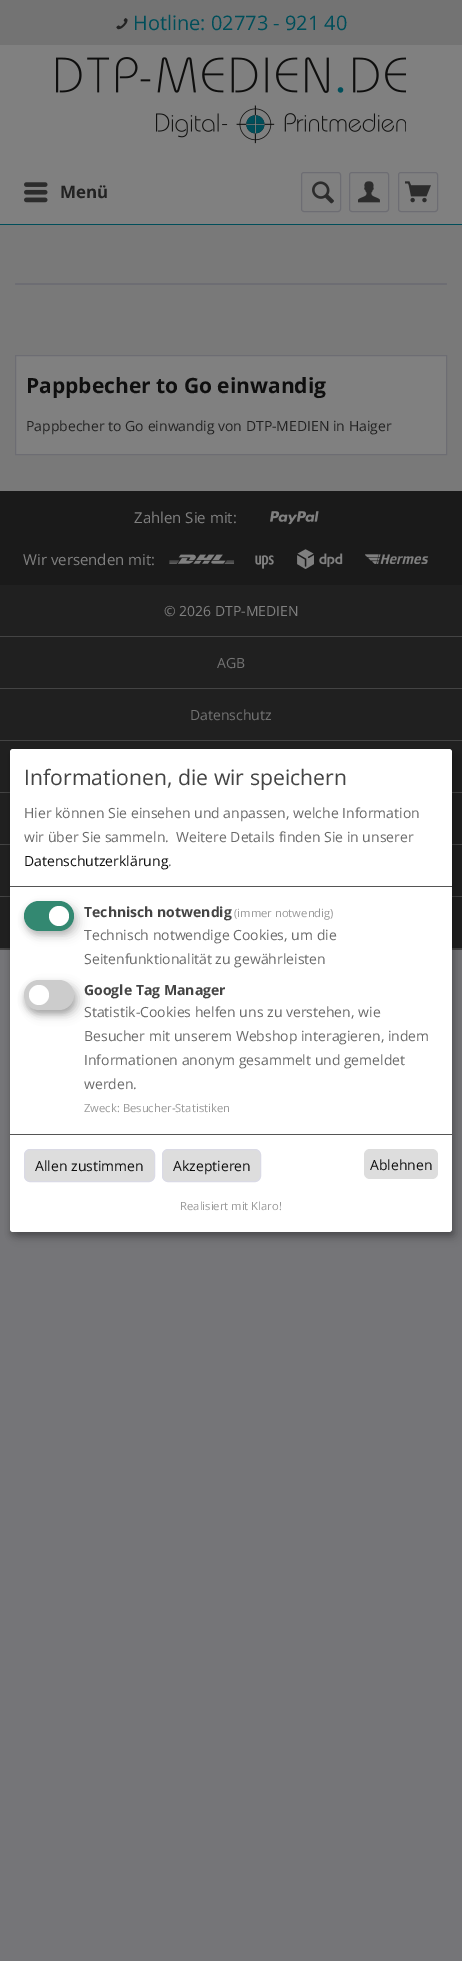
%!PS
<< /PageSize [462 1961] /PageUsesTransparency true >> setpagedevice
/rgb { 3 { 255 div 3 1 roll } repeat setrgbcolor } def
/font { [ exch dup neg 0 0 3 -1 roll 0 0 ] selectfont } def
/alpha { dup .setfillconstantalpha .setstrokeconstantalpha } def
/circle { newpath 0 360 arc closepath } def
/roundrect { 5 dict begin { /r /h /w /y /x } { exch def } forall
  x r add y moveto x w add y 2 copy h add r arct x w add y h add x 1 index r arct
  x y h add x y r arct x y 2 copy exch w add exch r arct closepath end } def
/shadow { 12 dict begin { /a /b /q /h /w /y /x } { exch def } forall gsave /was 0 def
  9 -2 -9 { dup b mul 4 div /e exch def 1 sub .425 mul 2.718 exch exp 1 add a .99 .min exch div /now exch def
    1 1 now sub 1 was sub div sub alpha /was now def
    w h .min e 2 mul add 0 gt { x e sub y e sub w e 2 mul add h e 2 mul add
      q e add b .6 mul add w h .min 2 div e add .min 0 .max roundrect fill } if } for grestore end } def
/picture { 5 dict begin { /h /w /y /x /name } { exch def } forall
  gsave x y translate w h scale
  w h 8 [w 0 0 h 0 0] name (r) file false 3 colorimage grestore end } def
0 .pushpdf14devicefilter
0 1961 translate 1 -1 scale
4 setmiterlimit
117 117 120 rgb
0 0 462 1961 rectfill
[
  [0 225 462 266 121 121 121]
  [0 45 462 179 128 128 128]
  [0 224 462 1 0 78 90]
  [0 0 462 45 115 115 115]
] { aload pop rgb rectfill } forall
(img/1.rgb) 116 18 12 12 picture
(img/2.rgb) 56 57 350 87 picture
(img/3.rgb) 24 182 24 21 picture
109 109 115 rgb
301.5 172.5 39 39 2.5 roundrect stroke
(img/4.rgb) 312 181 22 23 picture
349.5 172.5 39 39 2.5 roundrect stroke
(img/5.rgb) 358 181 22 22 picture
398.5 172.5 39 39 2.5 roundrect stroke
(img/6.rgb) 405 181 26 22 picture
15 283 432 2 1 roundrect fill
128 128 128 rgb
15.5 355.5 moveto 446.5 355.5 lineto 446.5 454.5 lineto 15.5 454.5 lineto closepath gsave fill grestore
109 109 115 rgb
stroke
26 26 26 rgb
0 491 462 94 rectfill
(img/7.rgb) 270 511 49 14 picture
(img/8.rgb) 169 554 66 10 picture
(img/9.rgb) 255 555 19 14 picture
(img/10.rgb) 297 549 46 20 picture
(img/11.rgb) 365 554 64 10 picture
[
  [0 585 462 363 32 32 32]
  [0 636 462 1 68 68 68]
  [0 948 462 2 68 68 68]
  [0 688 462 1 68 68 68]
  [0 740 462 1 68 68 68]
  [0 792 462 1 68 68 68]
  [0 844 462 1 68 68 68]
  [0 896 462 1 68 68 68]
] { aload pop rgb rectfill } forall
0 0 0 rgb
15 754 442 483 3 5 0.19 shadow
10 753 442 483 3 3 0.2 shadow
255 255 255 rgb
10 749 442 483 3 roundrect fill
85 85 85 rgb
10 886 442 1 rectfill
0 0 0 rgb
29 906 50 30 15 5 0.15 shadow
51 51 51 rgb
24 905 50 30 15 3 0.2 shadow
51 136 113 rgb
24 901 50 30 15 roundrect fill
255 255 255 rgb
59 916 10 circle fill
0 0 0 rgb
29 985 50 30 15 5 0.19 shadow
24 984 50 30 15 3 0.2 shadow
204 204 204 rgb
24 980 50 30 15 roundrect fill
255 255 255 rgb
39 995 10 circle fill
85 85 85 rgb
10 1134 442 1 rectfill
221 221 221 rgb
24.5 1149.5 130 32 5.5 roundrect gsave fill grestore
218 218 229 rgb
stroke
221 221 221 rgb
162.5 1149.5 98 32 5.5 roundrect gsave fill grestore
218 218 229 rgb
stroke
221 221 221 rgb
364 1149 74 30 6 roundrect fill
/OpenSans-Regular 20 font
0 78 90 rgb
133 30 moveto (Hotline: 02773 - 921 40) show
/OpenSans-Bold 17 font
34 34 34 rgb
60 198 moveto (Menü) show
/OpenSans-Bold 21 font
15 15 15 rgb
26 393 moveto (Pappbecher to Go einwandig) show
/OpenSans-Regular 14 font
34 34 34 rgb
26 431 moveto (Pappbecher to Go einwandig von DTP-MEDIEN in Haiger) show
/OpenSans-Regular 15 font
128 128 128 rgb
134 523 moveto (Zahlen Sie mit:) show
23 565 moveto (Wir versenden mit:) show
/OpenSans-Regular 14 font
164 616 moveto (© 2026 DTP-MEDIEN) show
115 115 115 rgb
217 668 moveto (AGB) show
190 720 moveto (Datenschutz) show
/OpenSans-Regular 21.25 font
68 68 68 rgb
24 785 moveto (Informationen, die wir speichern) show
/OpenSans-Regular 14 font
105 105 105 rgb
[
  [(Hier können Sie einsehen und anpassen, welche Information) 24 818]
  [(wir über Sie sammeln.) 24 842]
  [(Weitere Details finden Sie in unserer) 176 842]
] { aload pop moveto show } forall
15 15 15 rgb
24 866 moveto (Datenschutzerklärung) show
105 105 105 rgb
168 866 moveto (.) show
/OpenSans-Bold 14 font
68 68 68 rgb
84 917 moveto (Technisch notwendig) show
/OpenSans-Regular 11.25 font
153 153 153 rgb
234 917 moveto (\(immer notwendig\)) show
/OpenSans-Regular 14 font
105 105 105 rgb
84 940 moveto (Technisch notwendige Cookies, um die) show
84 964 moveto (Seitenfunktionalität zu gewährleisten) show
/OpenSans-Bold 14 font
68 68 68 rgb
84 995 moveto (Google Tag Manager) show
/OpenSans-Regular 14 font
105 105 105 rgb
[
  [(Statistik-Cookies helfen uns zu verstehen, wie) 84 1017]
  [(Besucher mit unserem Webshop interagieren, indem) 84 1041]
  [(Informationen anonym gesammelt und gemeldet) 84 1065]
  [(werden.) 84 1089]
] { aload pop moveto show } forall
/OpenSans-Regular 11.25 font
153 153 153 rgb
84 1112 moveto (Zweck: Besucher-Statistiken) show
/OpenSans-Regular 14 font
15 15 15 rgb
[
  [(Allen zustimmen) 35 1171]
  [(Akzeptieren) 173 1171]
  [(Ablehnen) 370 1170]
] { aload pop moveto show } forall
/OpenSans-Regular 11.25 font
153 153 153 rgb
180 1210 moveto (Realisiert mit Klaro!) show
.poppdf14devicefilter showpage
